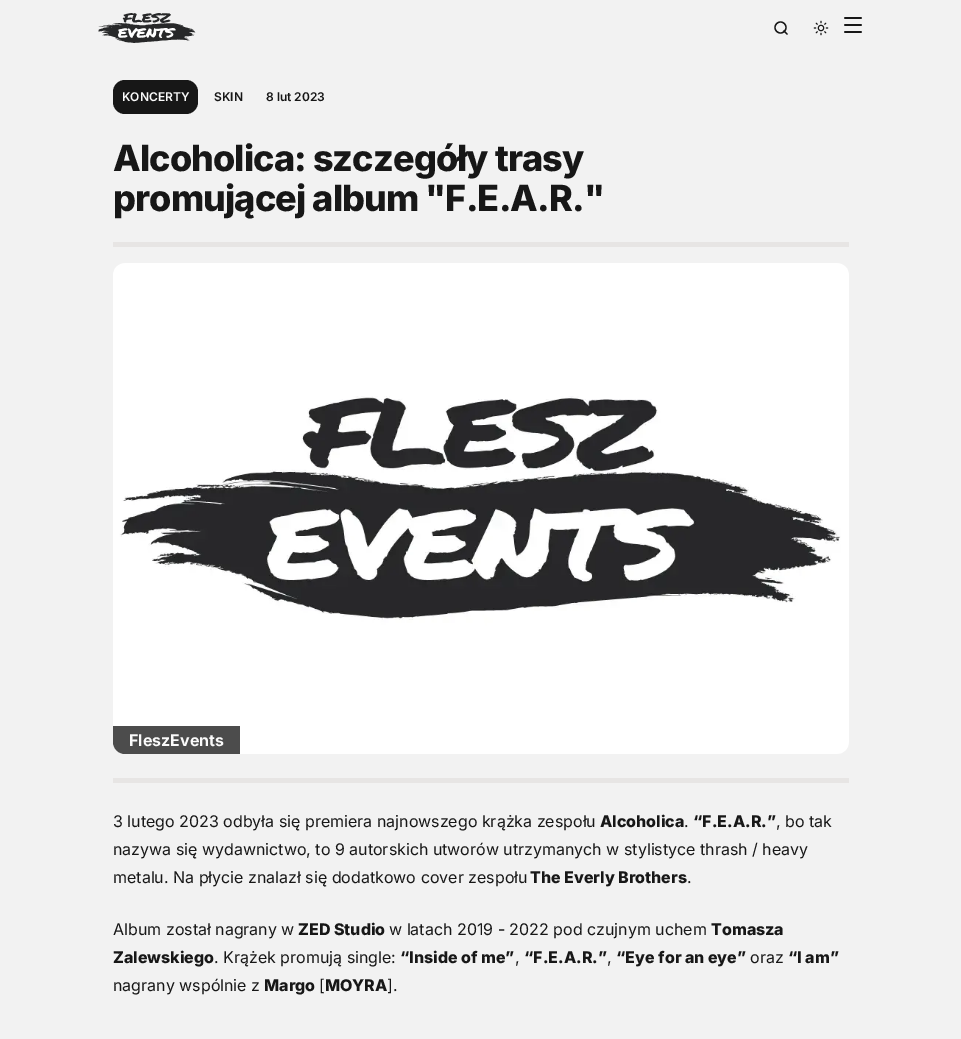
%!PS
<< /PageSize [961 1039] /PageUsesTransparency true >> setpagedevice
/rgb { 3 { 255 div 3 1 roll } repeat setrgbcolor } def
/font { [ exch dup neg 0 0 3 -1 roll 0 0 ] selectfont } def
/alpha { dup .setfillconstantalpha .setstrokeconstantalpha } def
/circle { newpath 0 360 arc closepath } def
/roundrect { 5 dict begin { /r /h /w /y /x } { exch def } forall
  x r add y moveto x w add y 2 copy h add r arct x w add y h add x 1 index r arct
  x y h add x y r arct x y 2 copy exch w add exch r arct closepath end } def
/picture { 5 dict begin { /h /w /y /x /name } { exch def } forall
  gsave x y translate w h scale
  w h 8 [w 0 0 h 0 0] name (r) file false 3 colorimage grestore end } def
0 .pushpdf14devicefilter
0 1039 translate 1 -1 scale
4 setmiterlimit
242 242 242 rgb
0 0 961 1039 rectfill
(img/1.rgb) 98 13 97 30 picture
(img/2.rgb) 98 13 98 30 picture
23 23 23 rgb
1.3 setlinewidth
1 setlinecap
1 setlinejoin
787 34 moveto 784 31 lineto stroke
0 setlinecap
0 setlinejoin
780.5 27.5 5.5 circle stroke
(img/3.rgb) 813 20 16 16 picture
(img/4.rgb) 844 17 18 16 picture
113 80 85 34 12 roundrect fill
231 229 228 rgb
113 242 736 5 rectfill
(img/5.rgb) 113 263 736 491 picture
0.7 alpha
0 0 0 rgb
113 726 moveto 240 726 lineto 240 754 lineto 125 754 lineto 118.5 754 113 748.5 113 742 curveto closepath fill
1 alpha
231 229 228 rgb
113 778 736 5 rectfill
/Inter-SemiBold 12 font
250 250 250 rgb
122 101 moveto (KONCERTY) show
23 23 23 rgb
214 101 moveto (SKIN) show
266 101 moveto (8 lut 2023) show
/Inter-ExtraBold 36 font
113 171 moveto -0.9 0 (Alcoholica: szczegóły trasy) ashow
113 211 moveto -0.9 0 (promującej album "F.E.A.R.") ashow
/Inter-Bold 16 font
250 250 250 rgb
129 746 moveto (FleszEvents) show
/Inter-Regular 16 font
23 23 23 rgb
113 827 moveto (3 lutego 2023 odbyła się premiera najnowszego krążka zespołu) show
/Inter-ExtraBold 16 font
600 827 moveto (Alcoholica) show
/Inter-Regular 16 font
684 827 moveto (.) show
/Inter-ExtraBold 16 font
693 827 moveto (“F.E.A.R.”) show
/Inter-Regular 16 font
[
  [(, bo tak) 776 827]
  [(nazywa się wydawnictwo, to 9 autorskich utworów utrzymanych w stylistyce thrash / heavy) 113 855]
  [(metalu. Na płycie znalazł się dodatkowo cover zespołu) 113 883]
] { aload pop moveto show } forall
/Inter-ExtraBold 16 font
530 883 moveto (The Everly Brothers) show
/Inter-Regular 16 font
687 883 moveto (.) show
113 935 moveto (Album został nagrany w) show
/Inter-ExtraBold 16 font
298 935 moveto (ZED Studio) show
/Inter-Regular 16 font
389 935 moveto (w latach 2019 - 2022 pod czujnym uchem) show
/Inter-ExtraBold 16 font
711 935 moveto (Tomasza) show
113 963 moveto (Zalewskiego) show
/Inter-Regular 16 font
214 963 moveto (. Krążek promują single:) show
/Inter-ExtraBold 16 font
400 963 moveto (“Inside of me”) show
/Inter-Regular 16 font
515 963 moveto (,) show
/Inter-ExtraBold 16 font
524 963 moveto (“F.E.A.R.”) show
/Inter-Regular 16 font
607 963 moveto (,) show
/Inter-ExtraBold 16 font
616 963 moveto (“Eye for an eye”) show
/Inter-Regular 16 font
750 963 moveto (oraz) show
/Inter-ExtraBold 16 font
788 963 moveto (“I am”) show
/Inter-Regular 16 font
113 991 moveto (nagrany wspólnie z) show
/Inter-ExtraBold 16 font
264 991 moveto (Margo) show
/Inter-Regular 16 font
319 991 moveto ([) show
/Inter-ExtraBold 16 font
325 991 moveto (MOYRA) show
/Inter-Regular 16 font
387 991 moveto (].) show
.poppdf14devicefilter showpage
